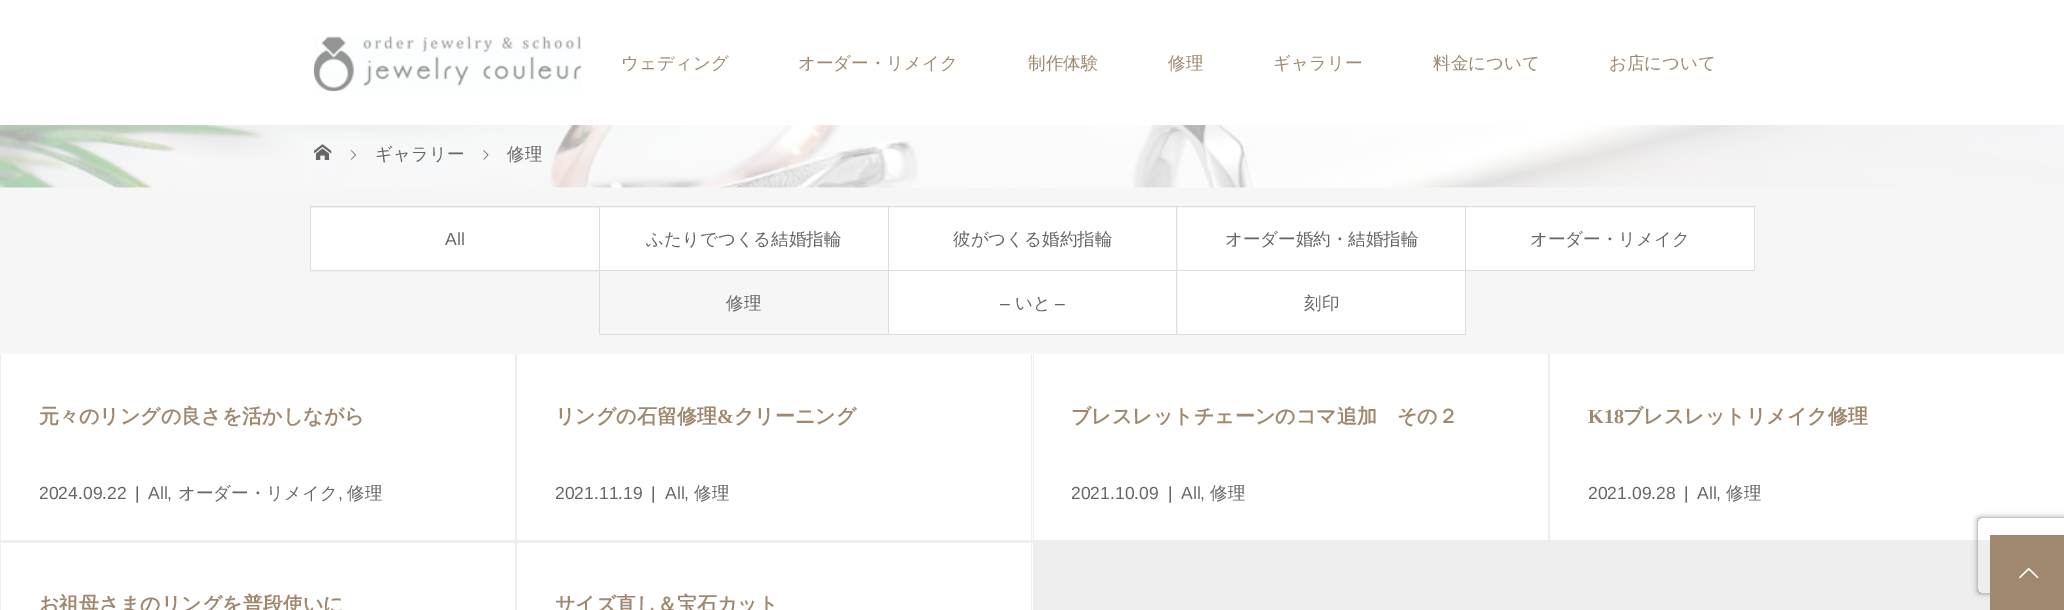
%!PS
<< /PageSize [2064 610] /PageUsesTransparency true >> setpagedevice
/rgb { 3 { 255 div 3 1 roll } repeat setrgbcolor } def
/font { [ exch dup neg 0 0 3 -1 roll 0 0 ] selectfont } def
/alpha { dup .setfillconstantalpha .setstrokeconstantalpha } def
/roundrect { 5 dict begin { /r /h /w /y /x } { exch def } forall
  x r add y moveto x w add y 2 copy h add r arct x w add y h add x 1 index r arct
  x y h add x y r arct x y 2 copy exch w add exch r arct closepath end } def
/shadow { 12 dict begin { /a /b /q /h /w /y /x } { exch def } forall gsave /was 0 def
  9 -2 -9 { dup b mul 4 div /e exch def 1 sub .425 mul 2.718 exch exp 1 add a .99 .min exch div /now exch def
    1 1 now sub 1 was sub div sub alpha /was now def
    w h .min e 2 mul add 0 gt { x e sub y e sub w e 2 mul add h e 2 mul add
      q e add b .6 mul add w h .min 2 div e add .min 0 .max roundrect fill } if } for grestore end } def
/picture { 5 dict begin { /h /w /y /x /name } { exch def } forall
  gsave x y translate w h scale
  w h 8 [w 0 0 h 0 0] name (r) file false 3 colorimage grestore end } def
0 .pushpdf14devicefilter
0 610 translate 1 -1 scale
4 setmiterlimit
255 255 255 rgb
0 0 2064 610 rectfill
(img/1.rgb) 313 36 269 56 picture
249 249 249 rgb
0 187 2064 1 rectfill
(img/2.rgb) 0 125 2064 63 picture
(img/3.rgb) 314 144 18 16 picture
(img/4.rgb) 350 150 6 10 picture
(img/5.rgb) 483 150 6 10 picture
246 246 246 rgb
0 188 2064 166 rectfill
221 221 221 rgb
310.5 206.5 289 64 rectstroke
[
  [311 208 288 62 255 255 255]
  [600 206 1155 1 221 221 221]
  [888 206 1 129 221 221 221]
  [600 270 289 1 221 221 221]
  [600 208 288 62 255 255 255]
  [1176 206 1 129 221 221 221]
  [889 270 289 1 221 221 221]
  [889 208 287 62 255 255 255]
  [1465 206 1 129 221 221 221]
  [1178 270 288 1 221 221 221]
  [1178 208 287 62 255 255 255]
  [1754 206 1 65 221 221 221]
  [1466 270 289 1 221 221 221]
  [1466 208 288 62 255 255 255]
  [599 334 867 1 221 221 221]
  [599 271 1 64 221 221 221]
  [889 271 287 63 255 255 255]
  [1178 271 287 63 255 255 255]
  [1033 543 957 67 238 238 238]
  [515 354 1 256 238 238 238]
  [0 540 516 3 238 238 238]
  [0 354 1 256 238 238 238]
  [1031 354 1 256 238 238 238]
  [516 540 517 3 238 238 238]
  [516 354 1 256 238 238 238]
  [1548 354 1 189 238 238 238]
  [1033 540 957 3 238 238 238]
  [1033 354 1 189 238 238 238]
  [1549 354 1 189 238 238 238]
] { aload pop rgb rectfill } forall
gsave
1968 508 moveto 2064 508 lineto 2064 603 lineto 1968 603 lineto closepath 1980.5 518 moveto 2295.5 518 lineto 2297 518 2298 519 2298 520.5 curveto 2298 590.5 lineto 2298 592 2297 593 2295.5 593 curveto 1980.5 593 lineto 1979 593 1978 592 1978 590.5 curveto 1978 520.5 lineto 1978 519 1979 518 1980.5 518 curveto closepath eoclip newpath
128 128 128 rgb
1978 518 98 75 2.5 3 1 shadow
grestore
159 136 110 rgb
1990 535 74 75 rectfill
(img/6.rgb) 2019 567 20 12 picture
/WenQuanYiZenHei-Medium 17.5 font
[
  [(ウェディング) 621 69]
  [(オーダー・リメイク) 798 69]
  [(制作体験) 1028 69]
  [(修理) 1168 69]
  [(ギャラリー) 1273 69]
  [(料金について) 1433 69]
  [(お店について) 1609 69]
] { aload pop moveto show } forall
102 102 102 rgb
375 160 moveto (ギャラリー) show
507 160 moveto (修理) show
/LiberationSans-Regular 17.5 font
445 245 moveto (All) show
/WenQuanYiZenHei-Medium 17.5 font
[
  [(ふたりでつくる結婚指輪) 646 245]
  [(彼がつくる婚約指輪) 953 245]
  [(オーダー婚約・結婚指輪) 1225 245]
  [(オーダー・リメイク) 1530 245]
  [(修理) 726 309]
] { aload pop moveto show } forall
/LiberationSans-Regular 17.5 font
1000 309 moveto (–) show
/WenQuanYiZenHei-Medium 17.5 font
1015 309 moveto (いと) show
/LiberationSans-Regular 17.5 font
1055 309 moveto (–) show
/WenQuanYiZenHei-Medium 17.5 font
1304 309 moveto (刻印) show
/WenQuanYiZenHei-Bold 20 font
159 136 110 rgb
39 423 moveto (元々のリングの良さを活かしながら) show
/LiberationSans-Regular 17.5 font
102 102 102 rgb
[
  [(2024.09.22) 39 499]
  [(|) 135 499]
  [(All,) 148 499]
] { aload pop moveto show } forall
/WenQuanYiZenHei-Medium 17.5 font
178 499 moveto (オーダー・リメイク) show
/LiberationSans-Regular 17.5 font
338 499 moveto (,) show
/WenQuanYiZenHei-Medium 17.5 font
347 499 moveto (修理) show
/WenQuanYiZenHei-Bold 20 font
159 136 110 rgb
555 423 moveto (リングの石留修理) show
/LiberationSerif-Bold 20 font
717 423 moveto (&) show
/WenQuanYiZenHei-Bold 20 font
734 423 moveto (クリーニング) show
/LiberationSans-Regular 17.5 font
102 102 102 rgb
[
  [(2021.11.19) 555 499]
  [(|) 651 499]
  [(All,) 665 499]
] { aload pop moveto show } forall
/WenQuanYiZenHei-Medium 17.5 font
694 499 moveto (修理) show
/WenQuanYiZenHei-Bold 20 font
159 136 110 rgb
1071 423 moveto (ブレスレットチェーンのコマ追加　その２) show
/LiberationSans-Regular 17.5 font
102 102 102 rgb
[
  [(2021.10.09) 1071 499]
  [(|) 1168 499]
  [(All,) 1181 499]
] { aload pop moveto show } forall
/WenQuanYiZenHei-Medium 17.5 font
1210 499 moveto (修理) show
/LiberationSerif-Bold 20 font
159 136 110 rgb
1588 423 moveto (K18) show
/WenQuanYiZenHei-Bold 20 font
1623 423 moveto (ブレスレットリメイク修理) show
/LiberationSans-Regular 17.5 font
102 102 102 rgb
[
  [(2021.09.28) 1588 499]
  [(|) 1684 499]
  [(All,) 1697 499]
] { aload pop moveto show } forall
/WenQuanYiZenHei-Medium 17.5 font
1726 499 moveto (修理) show
/WenQuanYiZenHei-Bold 20 font
159 136 110 rgb
39 611 moveto (お祖母さまのリングを普段使いに) show
555 611 moveto (サイズ直し＆宝石カット) show
.poppdf14devicefilter showpage
